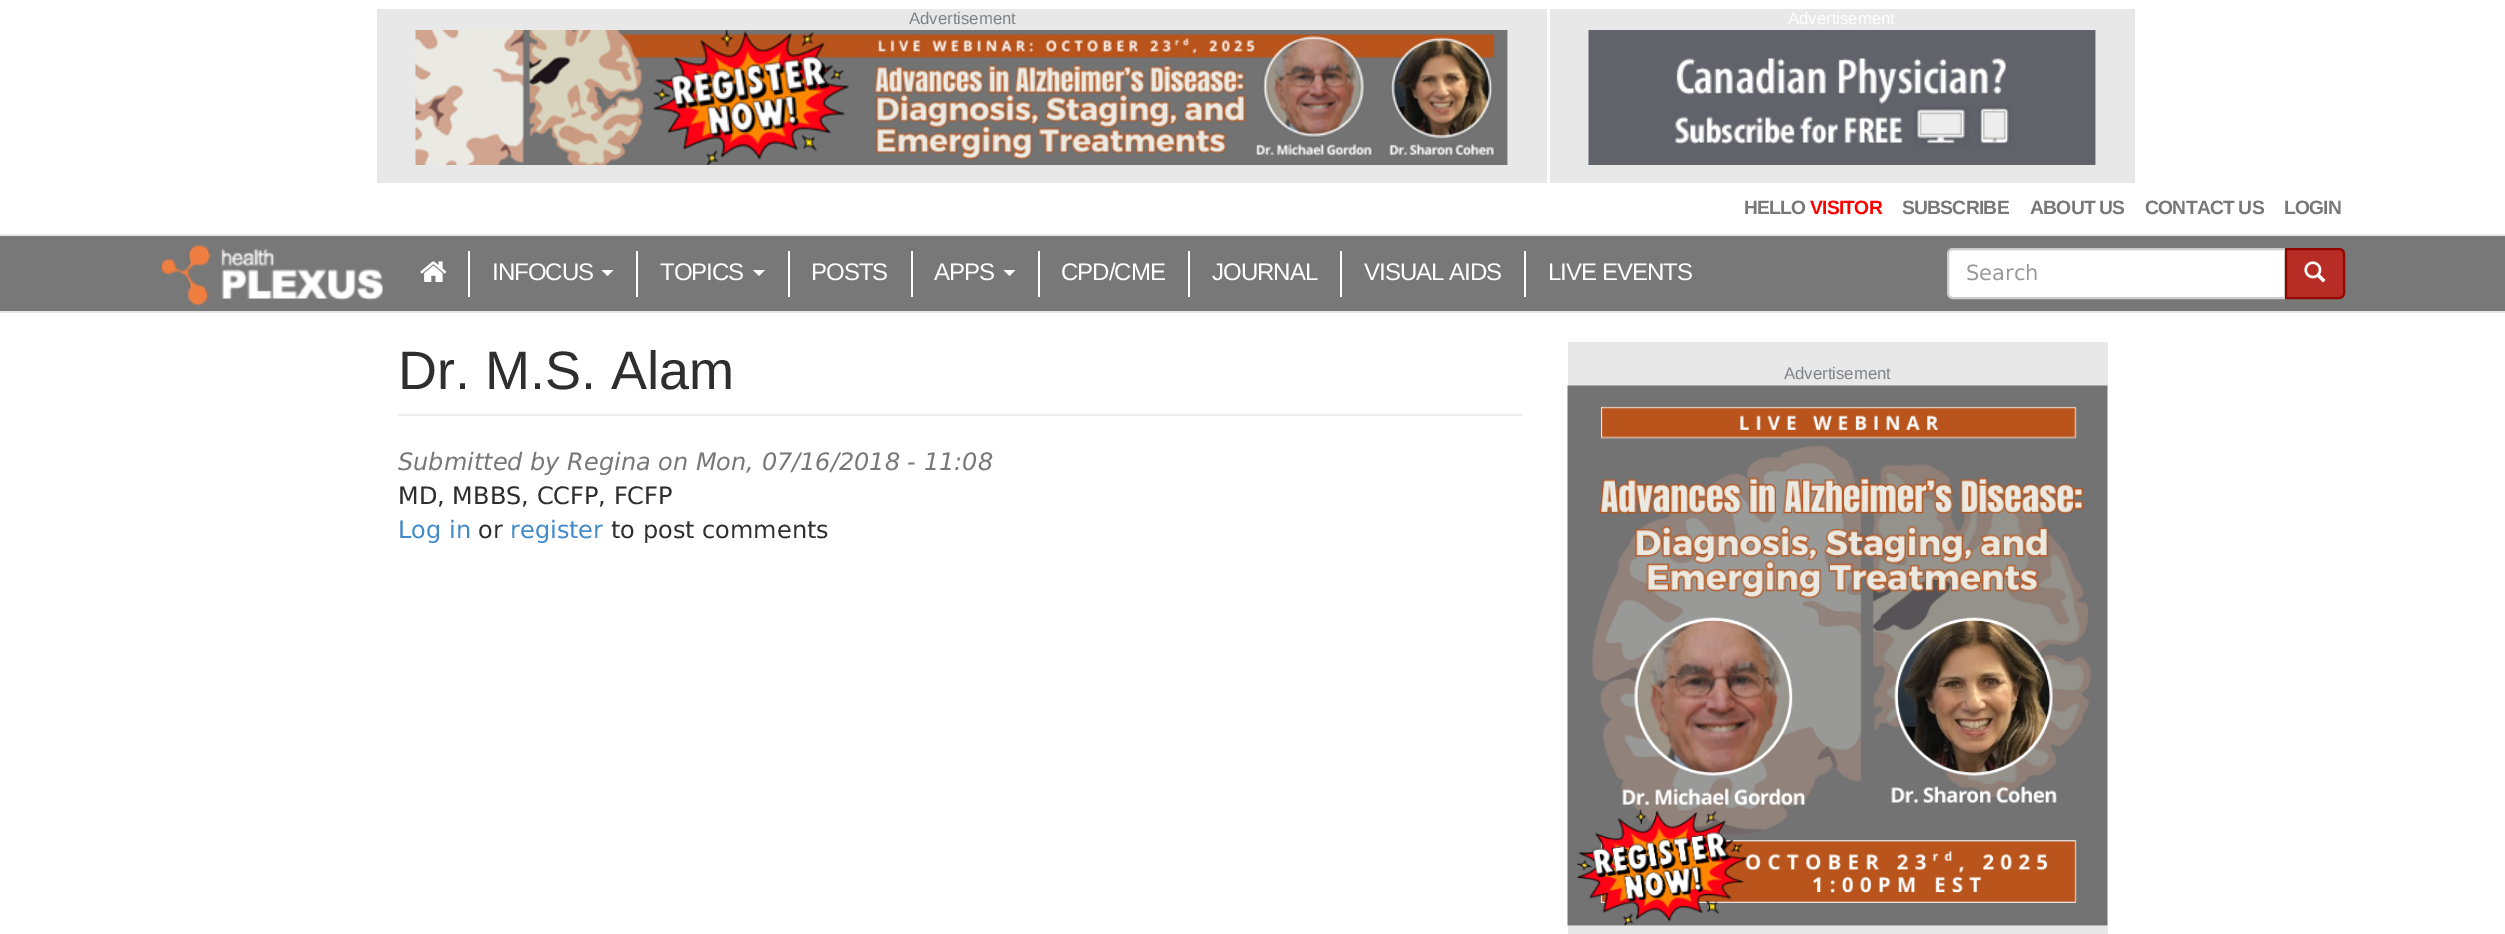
%!PS
<< /PageSize [2505 934] >> setpagedevice
/rgb { 3 { 255 div 3 1 roll } repeat setrgbcolor } def
/font { [ exch dup neg 0 0 3 -1 roll 0 0 ] selectfont } def
/picture { 5 dict begin { /h /w /y /x /name } { exch def } forall
  gsave x y translate w h scale
  w h 8 [w 0 0 h 0 0] name (r) file false 3 colorimage grestore end } def
0 934 translate 1 -1 scale
4 setmiterlimit
255 255 255 rgb
0 0 2505 934 rectfill
232 232 232 rgb
377 9 1170 174 rectfill
248 248 248 rgb
1507 30 1 135 rectfill
(img/1.rgb) 415 30 1093 135 picture
232 232 232 rgb
1550 9 585 174 rectfill
248 248 248 rgb
2095 30 1 135 rectfill
(img/2.rgb) 1588 30 508 135 picture
[
  [0 236 2505 75 120 120 120]
  [0 234 2505 2 231 231 231]
  [0 311 2505 2 231 231 231]
] { aload pop rgb rectfill } forall
(img/3.rgb) 162 244 221 61 picture
255 255 255 rgb
468 251 2 46 rectfill
(img/4.rgb) 420 261 27 21 picture
636 251 2 46 rectfill
601.5 270 moveto 613.5 270 lineto 607.5 276 lineto closepath fill
788 251 2 46 rectfill
753 270 moveto 765 270 lineto 759 276 lineto closepath fill
911 251 2 46 rectfill
1038 251 2 46 rectfill
1003.5 270 moveto 1015.5 270 lineto 1009.5 276 lineto closepath fill
[
  [1188 251 2 46 255 255 255]
  [1340 251 2 46 255 255 255]
  [1524 251 2 46 255 255 255]
] { aload pop rgb rectfill } forall
1953 249 moveto 2285 249 lineto 2285 298 lineto 1953 298 lineto 1950 298 1948 296 1948 293 curveto 1948 254 lineto 1948 251 1950 249 1953 249 curveto closepath gsave fill grestore
204 204 204 rgb
2 setlinewidth
stroke
183 45 37 rgb
2286 249 moveto 2339 249 lineto 2342 249 2344 251 2344 254 curveto 2344 293 lineto 2344 296 2342 298 2339 298 curveto 2286 298 lineto closepath gsave fill grestore
146 8 0 rgb
stroke
(img/5.rgb) 2304 261 22 22 picture
[
  [398 414 1125 2 238 238 238]
  [1568 342 540 592 232 232 232]
  [1568 386 540 540 248 248 248]
] { aload pop rgb rectfill } forall
(img/6.rgb) 1567 385 541 541 picture
/LiberationSans-Regular 16.75 font
128 130 133 rgb
909 24 moveto (Advertisement) show
255 255 255 rgb
1788 24 moveto (Advertisement) show
/LiberationSans-Bold 19.25 font
120 120 120 rgb
1744 214 moveto -0.75 0 (HELLO) ashow
255 0 0 rgb
1810 214 moveto -0.75 0 (VISITOR) ashow
120 120 120 rgb
1902 214 moveto -0.75 0 (SUBSCRIBE) ashow
2030 214 moveto -0.75 0 (ABOUT US) ashow
2145 214 moveto -0.75 0 (CONTACT US) ashow
2284 214 moveto -0.75 0 (LOGIN) ashow
/LiberationSans-Regular 24 font
255 255 255 rgb
492 280 moveto -1 0 (INFOCUS) ashow
660 280 moveto -1 0 (TOPICS) ashow
811 280 moveto -1 0 (POSTS) ashow
934 280 moveto -1 0 (APPS) ashow
1061 280 moveto -1 0 (CPD/CME) ashow
1212 280 moveto -1 0 (JOURNAL) ashow
1364 280 moveto -1 0 (VISUAL AIDS) ashow
1548 280 moveto -1 0 (LIVE EVENTS) ashow
/DejaVuSans-Regular 21 font
153 153 153 rgb
1966 280 moveto (Search) show
/LiberationSans-Regular 54 font
46 46 46 rgb
398 389 moveto (Dr. M.S. Alam) show
/DejaVuSans-Italic 24 font
120 120 120 rgb
398 470 moveto (Submitted by Regina on Mon, 07/16/2018 - 11:08) show
/DejaVuSans-Regular 24 font
46 46 46 rgb
398 504 moveto (MD, MBBS, CCFP, FCFP) show
66 139 202 rgb
398 538 moveto (Log in) show
46 46 46 rgb
478 538 moveto (or) show
66 139 202 rgb
510 538 moveto (register) show
46 46 46 rgb
611 538 moveto (to post comments) show
/LiberationSans-Regular 16.75 font
128 130 133 rgb
1784 379 moveto (Advertisement) show
showpage
